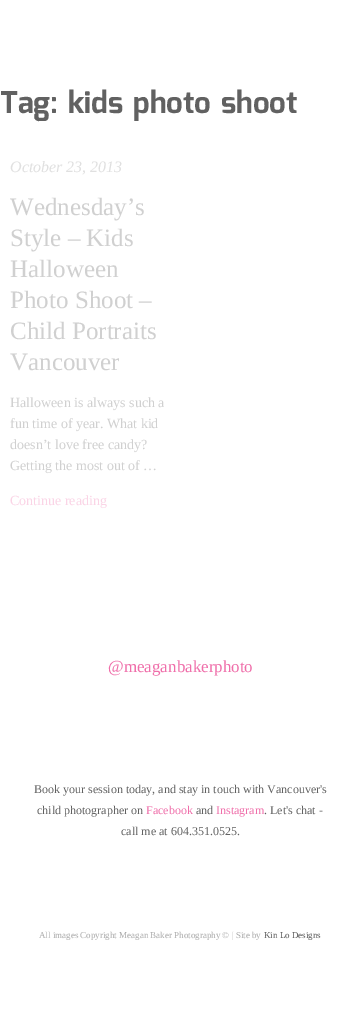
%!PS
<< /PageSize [360 1028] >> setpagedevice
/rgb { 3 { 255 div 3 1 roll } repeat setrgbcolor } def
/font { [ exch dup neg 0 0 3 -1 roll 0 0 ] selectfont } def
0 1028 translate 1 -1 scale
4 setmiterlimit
255 255 255 rgb
0 0 360 1028 rectfill
/Mina-Bold 30 font
97 97 97 rgb
0 113 moveto (Tag: kids photo shoot) show
/LiberationSerif-Italic 16 font
224 224 224 rgb
10 172 moveto (October 23, 2013) show
/LiberationSerif-Regular 25 font
208 208 208 rgb
[
  [(Wednesday’s) 10 215]
  [(Style – Kids) 10 246]
  [(Halloween) 10 277]
  [(Photo Shoot –) 10 308]
  [(Child Portraits) 10 339]
  [(Vancouver) 10 370]
] { aload pop moveto show } forall
/LiberationSerif-Regular 14 font
[
  [(Halloween is always such a) 10 407]
  [(fun time of year. What kid) 10 428]
  [(doesn’t love free candy?) 10 449]
  [(Getting the most out of …) 10 470]
] { aload pop moveto show } forall
251 212 230 rgb
10 505 moveto (Continue reading) show
/LiberationSerif-Regular 17 font
240 110 170 rgb
108 672 moveto (@meaganbakerphoto) show
/LiberationSerif-Regular 12 font
97 97 97 rgb
34 793 moveto (Book your session today, and stay in touch with Vancouver's) show
37 814 moveto (child photographer on) show
240 110 170 rgb
146 814 moveto (Facebook) show
97 97 97 rgb
196 814 moveto (and) show
240 110 170 rgb
216 814 moveto (Instagram) show
97 97 97 rgb
264 814 moveto (. Let's chat -) show
121 835 moveto (call me at 604.351.0525.) show
/LiberationSerif-Regular 9 font
170 170 170 rgb
39 938 moveto (All images Copyright Meagan Baker Photography © | Site by) show
85 85 85 rgb
264 938 moveto (Kin Lo Designs) show
showpage
